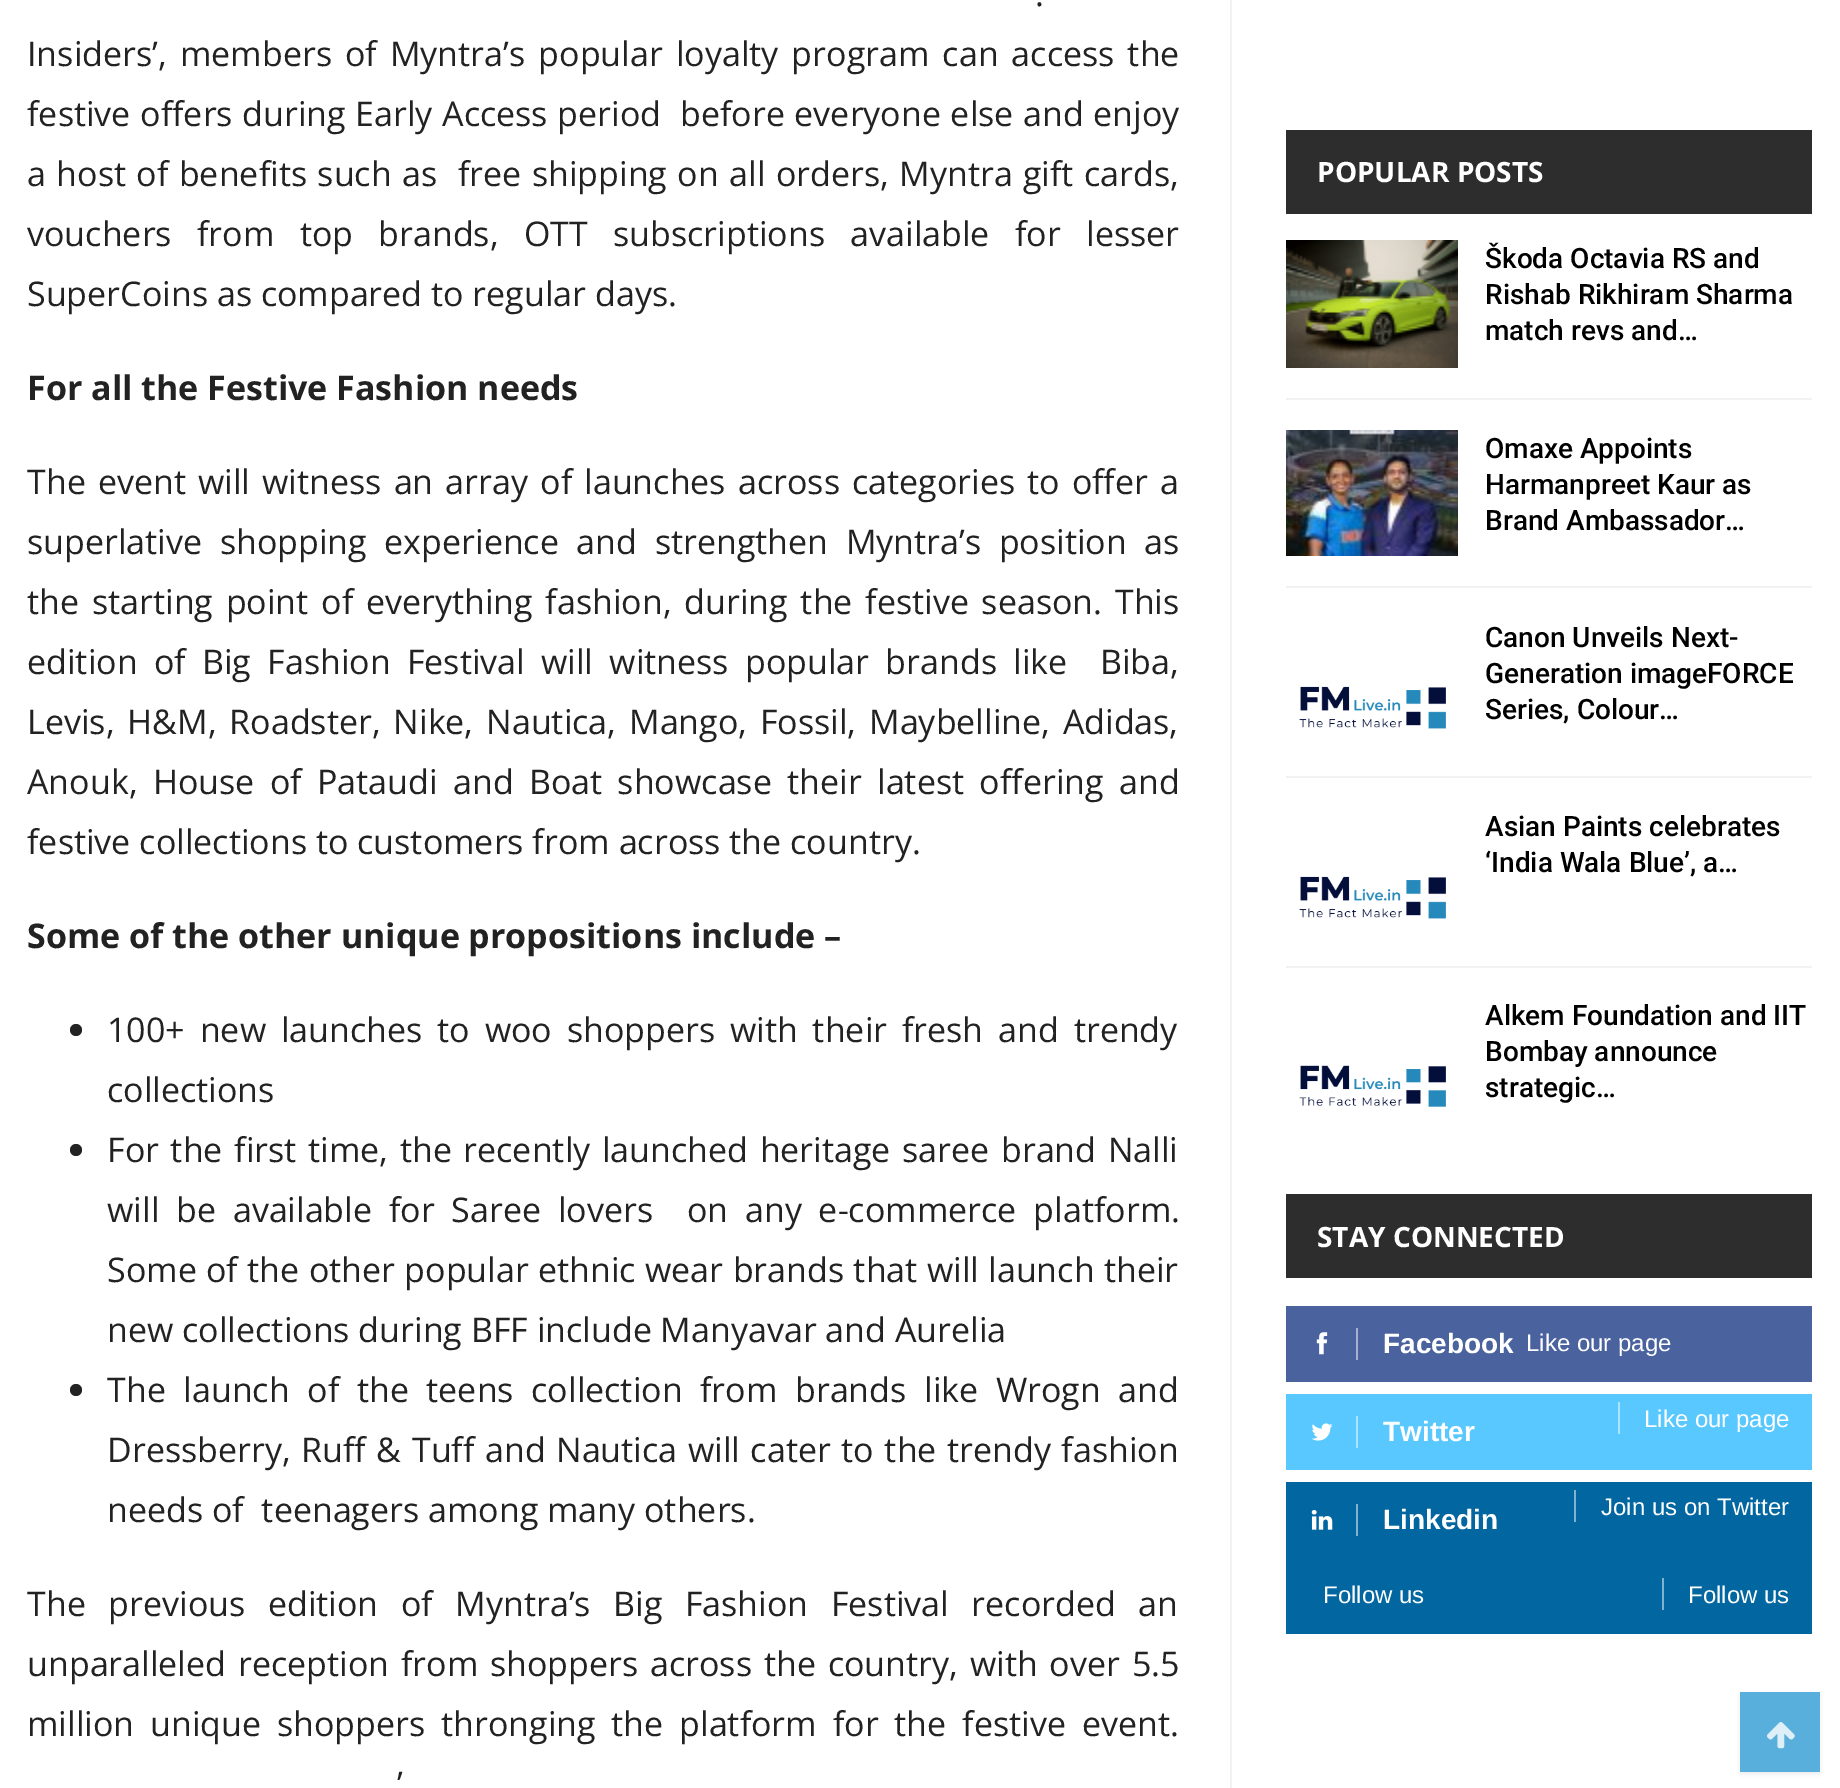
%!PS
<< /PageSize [1840 1788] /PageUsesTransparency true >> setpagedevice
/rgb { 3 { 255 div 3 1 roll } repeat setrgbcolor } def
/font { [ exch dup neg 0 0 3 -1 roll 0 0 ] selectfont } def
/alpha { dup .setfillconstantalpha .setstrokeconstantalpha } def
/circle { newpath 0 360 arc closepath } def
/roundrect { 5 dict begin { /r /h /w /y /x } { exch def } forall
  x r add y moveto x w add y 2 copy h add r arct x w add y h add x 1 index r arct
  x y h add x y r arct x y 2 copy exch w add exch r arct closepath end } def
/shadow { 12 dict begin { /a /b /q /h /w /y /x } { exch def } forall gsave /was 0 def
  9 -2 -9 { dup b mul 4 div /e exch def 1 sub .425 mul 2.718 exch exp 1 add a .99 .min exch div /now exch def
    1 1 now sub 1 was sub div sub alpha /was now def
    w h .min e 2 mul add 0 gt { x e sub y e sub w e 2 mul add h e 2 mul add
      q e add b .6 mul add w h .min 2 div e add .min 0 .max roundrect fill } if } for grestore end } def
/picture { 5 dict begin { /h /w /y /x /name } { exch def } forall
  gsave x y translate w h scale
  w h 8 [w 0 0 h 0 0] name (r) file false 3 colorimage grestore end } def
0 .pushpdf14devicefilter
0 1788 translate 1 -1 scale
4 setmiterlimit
255 255 255 rgb
0 0 1840 1788 rectfill
34 34 34 rgb
76 1030 6 circle fill
76 1150 6 circle fill
76 1390 6 circle fill
[
  [1230 0 2 1788 242 242 242]
  [1286 130 526 84 45 45 45]
  [1286 398 526 2 242 242 242]
] { aload pop rgb rectfill } forall
(img/1.rgb) 1286 240 172 128 picture
1286 586 526 2 rectfill
(img/2.rgb) 1286 430 172 126 picture
1286 776 526 2 rectfill
(img/3.rgb) 1299 686 147 43 picture
1286 966 526 2 rectfill
(img/3.rgb) 1299 876 147 43 picture
(img/4.rgb) 1299 1065 147 42 picture
45 45 45 rgb
1286 1194 526 84 rectfill
74 99 159 rgb
1286 1306 526 76 rectfill
(img/5.rgb) 1316 1332 12 23 picture
[
  [1356 1328 2 32 165 177 207]
  [1286 1394 526 76 89 200 255]
  [1618 1402 2 32 172 228 255]
] { aload pop rgb rectfill } forall
(img/6.rgb) 1311 1423 22 18 picture
[
  [1356 1416 2 32 172 228 255]
  [1286 1482 526 152 2 102 160]
  [1574 1490 2 32 129 179 208]
] { aload pop rgb rectfill } forall
(img/7.rgb) 1311 1510 22 20 picture
1356 1504 2 32 rectfill
1662 1578 2 32 rectfill
51 51 51 rgb
1740 1694 80 80 0 2 0.09 shadow
89 175 220 rgb
1740 1692 80 80 rectfill
(img/8.rgb) 1767 1722 28 27 picture
/OpenSans-Regular 34 font
34 34 34 rgb
1035 6 moveto 7 0 32 (.) widthshow
27 66 moveto 4.25 0 32 (Insiders’, members of Myntra’s popular loyalty program can access the) widthshow
27 126 moveto 0.75 0 32 (festive offers during Early Access period  before everyone else and enjoy) widthshow
27 186 moveto 1.6 0 32 (a host of benefits such as  free shipping on all orders, Myntra gift cards,) widthshow
27 246 moveto 16.5 0 32 (vouchers from top brands, OTT subscriptions available for lesser) widthshow
27 306 moveto (SuperCoins as compared to regular days.) show
/OpenSans-Bold 34 font
27 400 moveto (For all the Festive Fashion needs) show
/OpenSans-Regular 34 font
27 494 moveto 3.25 0 32 (The event will witness an array of launches across categories to offer a) widthshow
27 554 moveto 8.75 0 32 (superlative shopping experience and strengthen Myntra’s position as) widthshow
27 614 moveto 3.9 0 32 (the starting point of everything fashion, during the festive season. This) widthshow
27 674 moveto 7.4 0 32 (edition of Big Fashion Festival will witness popular brands like  Biba,) widthshow
27 734 moveto 4 0 32 (Levis, H&M, Roadster, Nike, Nautica, Mango, Fossil, Maybelline, Adidas,) widthshow
27 794 moveto 6.5 0 32 (Anouk, House of Pataudi and Boat showcase their latest offering and) widthshow
27 854 moveto (festive collections to customers from across the country.) show
/OpenSans-Bold 34 font
27 948 moveto (Some of the other unique propositions include –) show
/OpenSans-Regular 34 font
107 1042 moveto 6 0 32 (100+ new launches to woo shoppers with their fresh and trendy) widthshow
107 1102 moveto (collections) show
107 1162 moveto 2.75 0 32 (For the first time, the recently launched heritage saree brand Nalli) widthshow
107 1222 moveto 8 0 32 (will be available for Saree lovers  on any e-commerce platform.) widthshow
107 1282 moveto 0.5 0 32 (Some of the other popular ethnic wear brands that will launch their) widthshow
107 1342 moveto (new collections during BFF include Manyavar and Aurelia) show
107 1402 moveto 8.75 0 32 (The launch of the teens collection from brands like Wrogn and) widthshow
107 1462 moveto 1.75 0 32 (Dressberry, Ruff & Tuff and Nautica will cater to the trendy fashion) widthshow
107 1522 moveto (needs of  teenagers among many others.) show
27 1616 moveto 13.75 0 32 (The previous edition of Myntra’s Big Fashion Festival recorded an) widthshow
27 1676 moveto 3 0 32 (unparalleled reception from shoppers across the country, with over 5.5) widthshow
27 1736 moveto 7 0 32 (million unique shoppers thronging the platform for the festive event.) widthshow
397 1796 moveto 8 0 32 (’) widthshow
/OpenSans-Bold 28 font
255 255 255 rgb
1317 182 moveto (POPULAR POSTS) show
/Roboto-Medium 28 font
0 0 0 rgb
[
  [(Škoda Octavia RS and) 1485 268]
  [(Rishab Rikhiram Sharma) 1485 304]
  [(match revs and…) 1485 340]
  [(Omaxe Appoints) 1485 458]
  [(Harmanpreet Kaur as) 1485 494]
  [(Brand Ambassador…) 1485 530]
  [(Canon Unveils Next-) 1485 647]
  [(Generation imageFORCE) 1485 683]
  [(Series, Colour…) 1485 719]
  [(Asian Paints celebrates) 1485 836]
  [(‘India Wala Blue’, a…) 1485 872]
  [(Alkem Foundation and IIT) 1485 1025]
  [(Bombay announce) 1485 1061]
  [(strategic…) 1485 1097]
] { aload pop moveto show } forall
/OpenSans-Bold 28 font
255 255 255 rgb
1317 1247 moveto (STAY CONNECTED) show
/LiberationSans-Bold 28 font
1383 1353 moveto (Facebook) show
/LiberationSans-Regular 24 font
1526 1351 moveto (Like our page) show
1644 1427 moveto (Like our page) show
/LiberationSans-Bold 28 font
1383 1441 moveto (Twitter) show
/LiberationSans-Regular 24 font
1601 1515 moveto (Join us on Twitter) show
/LiberationSans-Bold 28 font
1383 1529 moveto (Linkedin) show
/LiberationSans-Regular 24 font
1323 1603 moveto (Follow us) show
1688 1603 moveto (Follow us) show
.poppdf14devicefilter showpage
